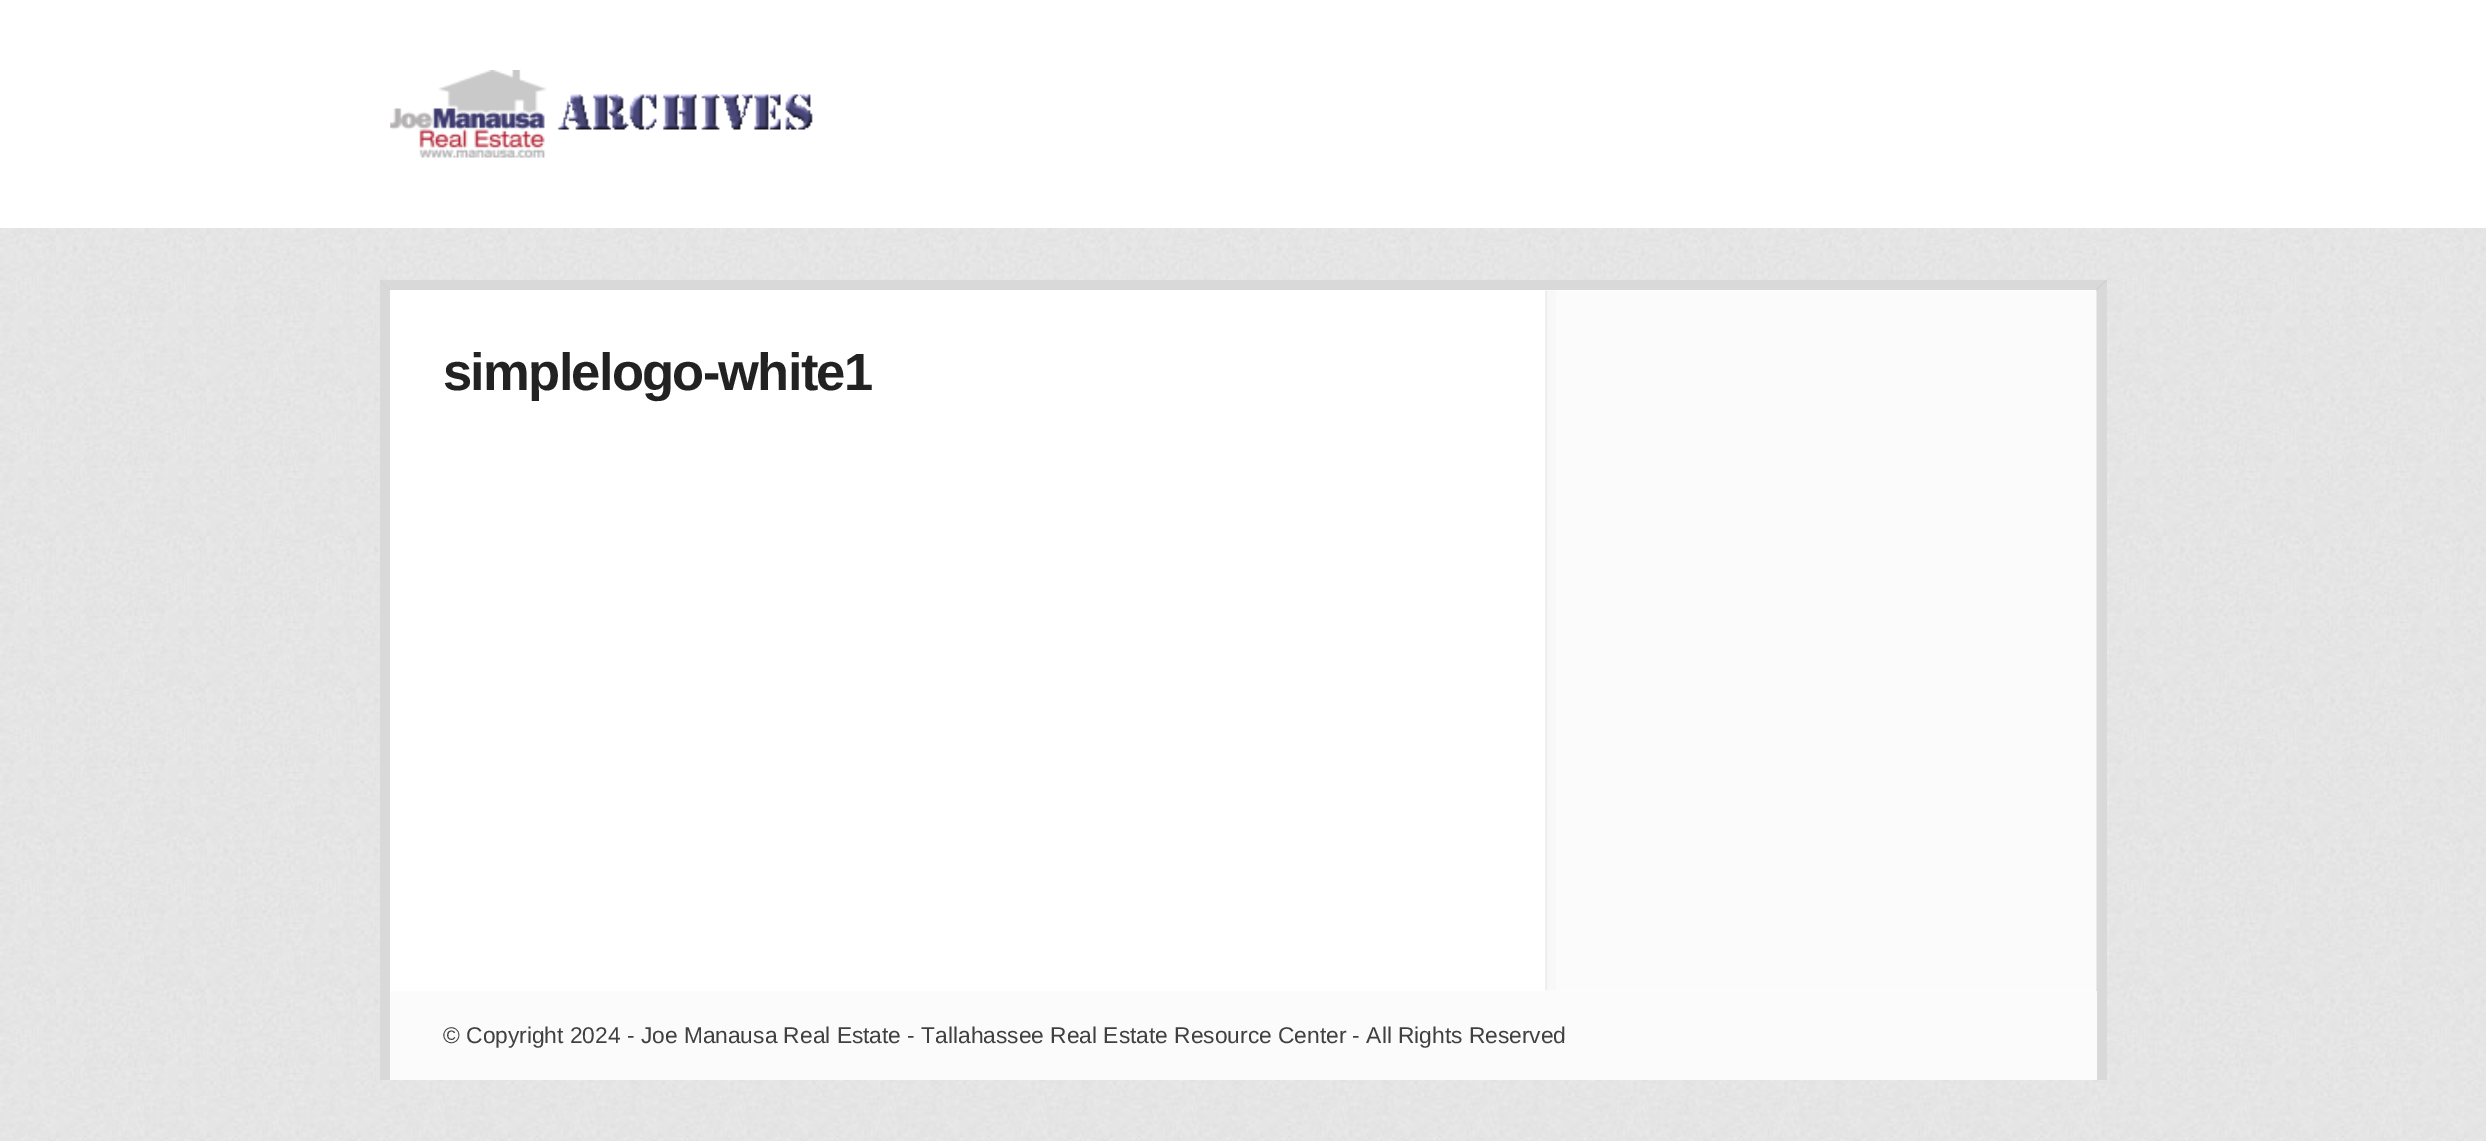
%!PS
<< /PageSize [2486 1141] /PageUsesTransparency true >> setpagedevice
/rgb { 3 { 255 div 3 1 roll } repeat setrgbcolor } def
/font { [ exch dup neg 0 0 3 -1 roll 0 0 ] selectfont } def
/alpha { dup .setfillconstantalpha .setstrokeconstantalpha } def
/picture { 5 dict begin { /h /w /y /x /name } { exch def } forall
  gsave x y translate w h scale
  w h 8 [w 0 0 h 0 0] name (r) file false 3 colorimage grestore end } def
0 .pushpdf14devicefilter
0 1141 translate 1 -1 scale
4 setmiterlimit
228 228 228 rgb
0 0 2486 1141 rectfill
(img/1.rgb) 0 228 2485 913 picture
255 255 255 rgb
0 0 2486 228 rectfill
(img/2.rgb) 390 70 423 88 picture
380 280 1727 800 rectfill
217 217 217 rgb
380 280 moveto 2107 280 lineto 2096 290 lineto 390 290 lineto closepath fill
0.15 alpha
0 0 0 rgb
2107 280 moveto 2107 1080 lineto 2096 1080 lineto 2096 290 lineto closepath fill
380 1080 moveto 380 280 lineto 390 290 lineto 390 1080 lineto closepath fill
1 alpha
(img/3.rgb) 1545 290 552 701 picture
251 251 251 rgb
390 991 1707 89 rectfill
/LiberationSans-Bold 52.5 font
34 34 34 rgb
443 390 moveto -1.75 0 (simplelogo-white1) ashow
/LiberationSans-Regular 22.75 font
64 64 64 rgb
443 1043 moveto (© Copyright 2024 - Joe Manausa Real Estate - Tallahassee Real Estate Resource Center - All Rights Reserved) show
.poppdf14devicefilter showpage
